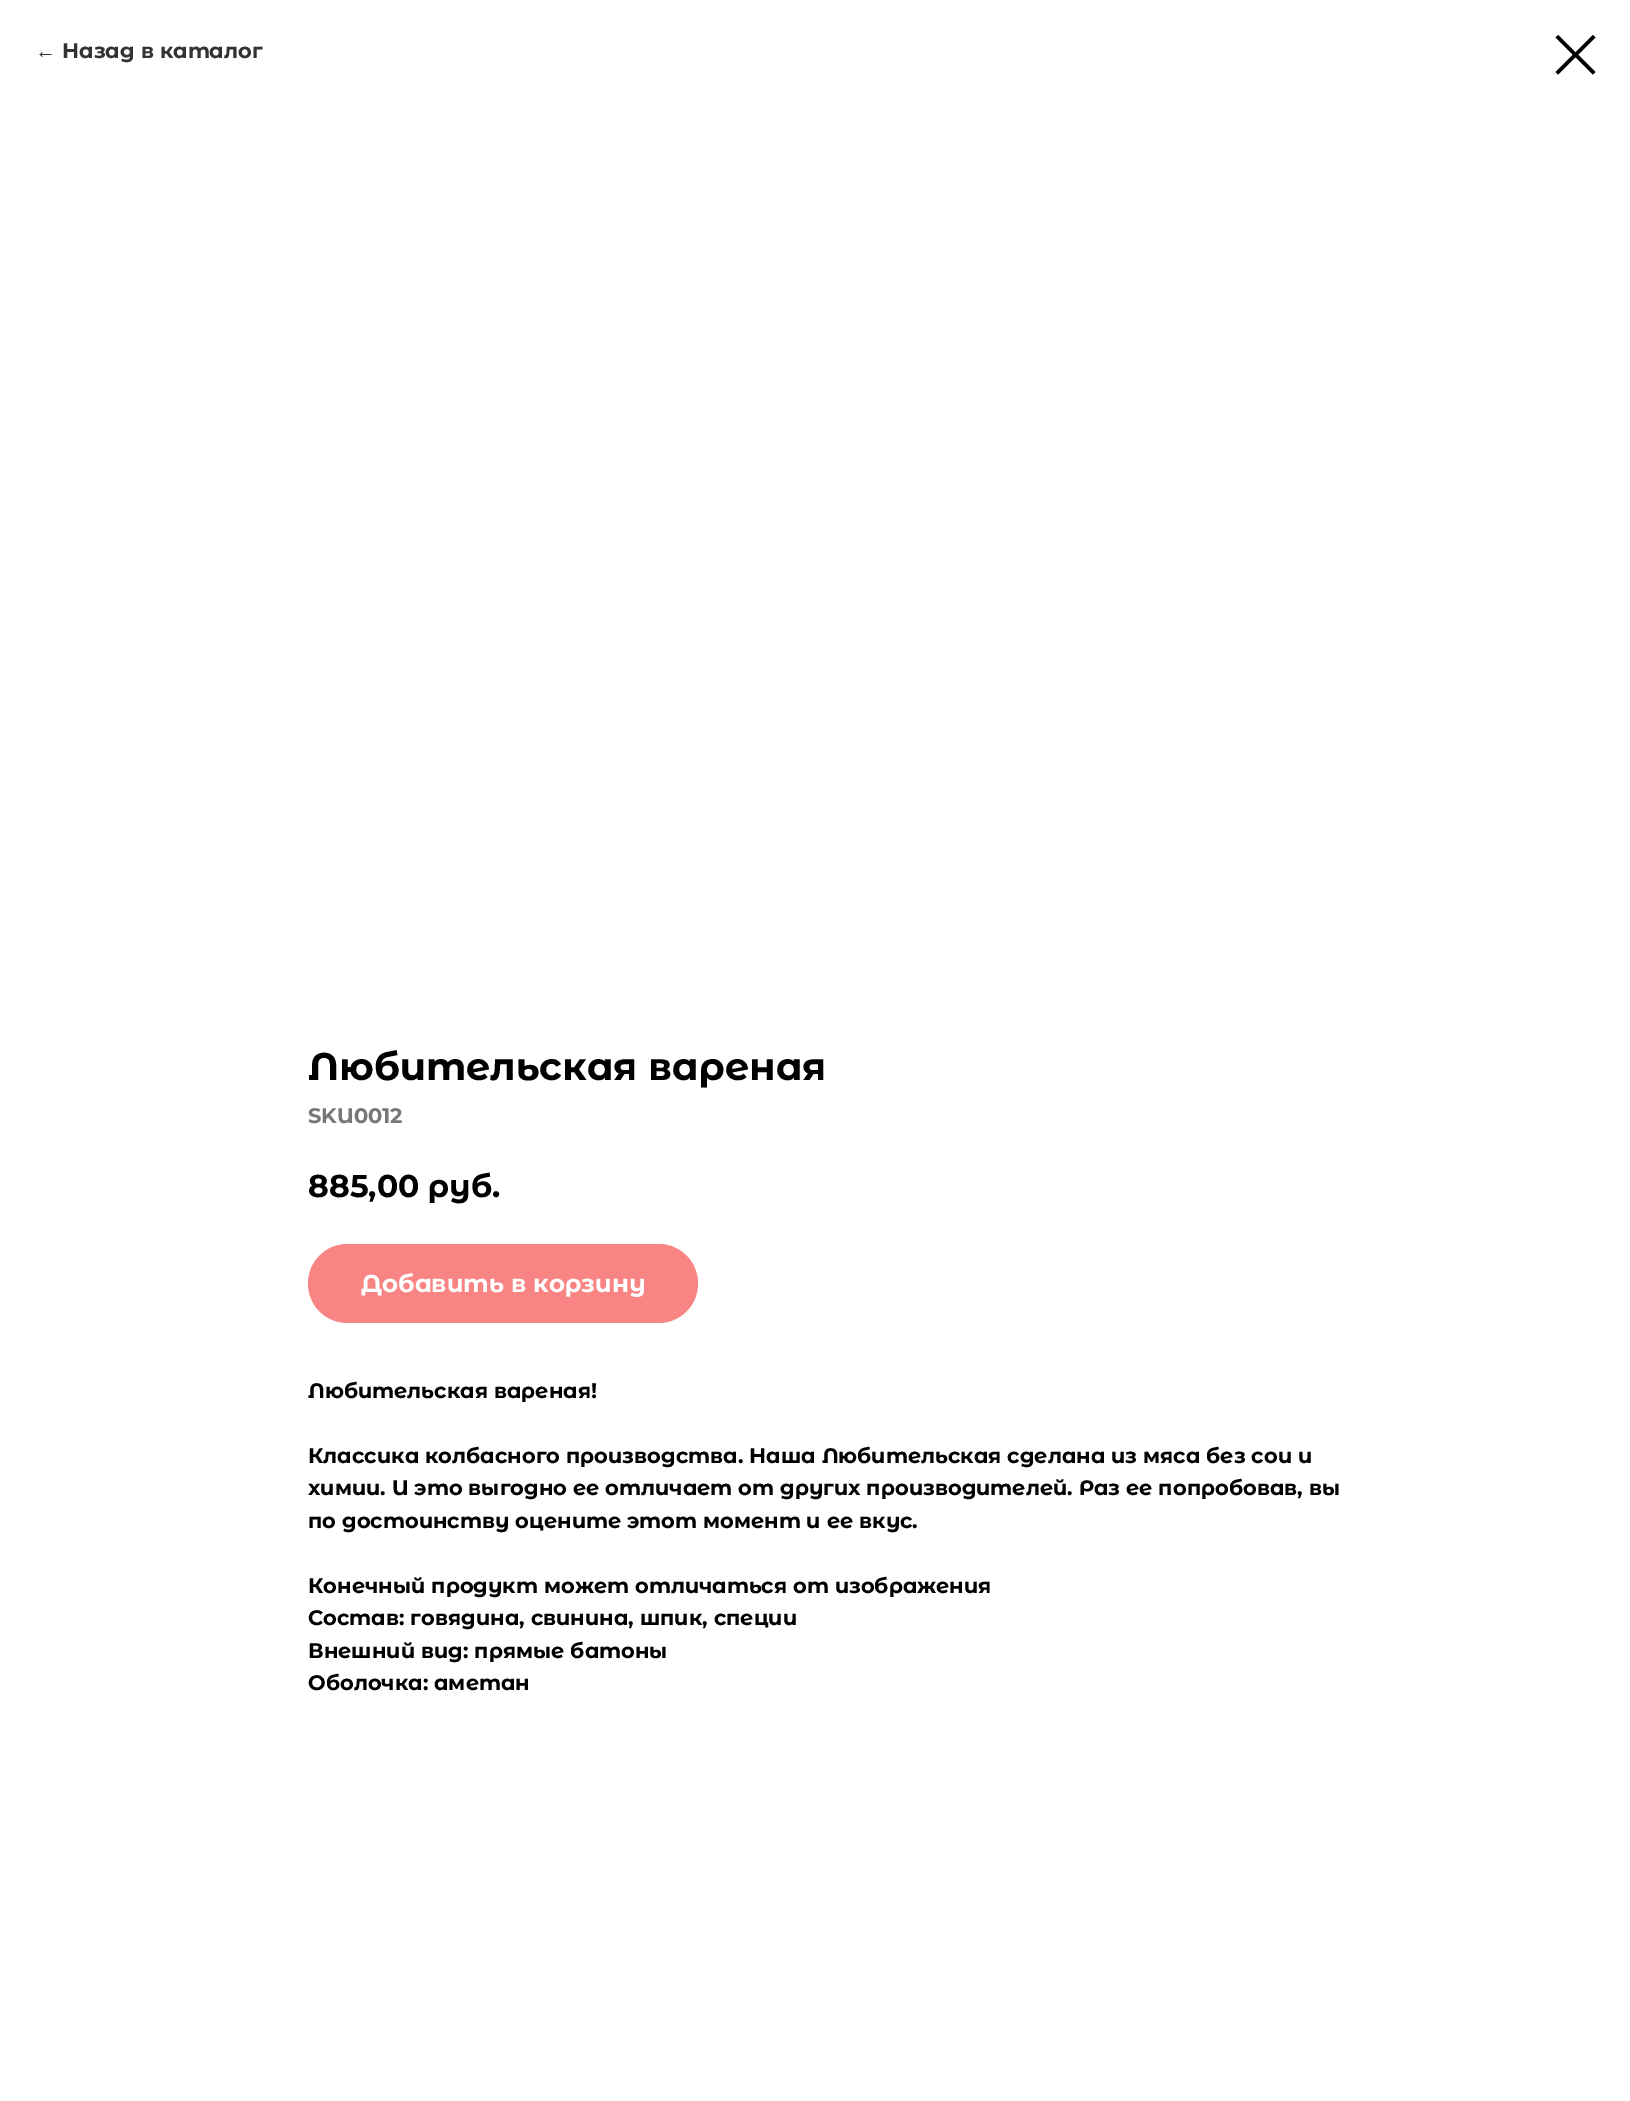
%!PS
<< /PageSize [1630 2101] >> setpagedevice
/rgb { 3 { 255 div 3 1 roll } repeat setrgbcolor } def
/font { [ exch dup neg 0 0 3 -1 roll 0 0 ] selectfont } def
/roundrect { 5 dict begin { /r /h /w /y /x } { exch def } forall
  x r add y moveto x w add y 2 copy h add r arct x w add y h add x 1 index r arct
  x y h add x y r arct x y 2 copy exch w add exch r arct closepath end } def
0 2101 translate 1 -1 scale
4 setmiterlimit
255 255 255 rgb
0 0 1630 2101 rectfill
0 0 0 rgb
1555.5 37.5 moveto 1558 35 lineto 1595.5 72 lineto 1593 74.5 lineto closepath eofill
1593 35 moveto 1595.5 37.5 lineto 1558 74.5 lineto 1555.5 72 lineto closepath eofill
249 132 132 rgb
308 1244 390 79 39.5 roundrect fill
/LiberationSans-Regular 21 font
51 51 51 rgb
35 58 moveto (←) show
/MontserratAlternates-Bold 21 font
62 58 moveto (Назад в каталог) show
/MontserratAlternates-Bold 38.5 font
0 0 0 rgb
308 1080 moveto (Любительская вареная) show
/MontserratAlternates-Bold 21 font
119 119 119 rgb
308 1123 moveto (SKU0012) show
/MontserratAlternates-Bold 31.5 font
0 0 0 rgb
308 1197 moveto (885,00 руб.) show
/MontserratAlternates-Bold 24.5 font
255 255 255 rgb
361 1292 moveto (Добавить в корзину) show
/MontserratAlternates-Bold 21 font
0 0 0 rgb
[
  [(Любительская вареная!) 308 1398]
  [(Классика колбасного производства. Наша Любительская сделана из мяса без сои и) 308 1463]
  [(химии. И это выгодно ее отличает от других производителей. Раз ее попробовав, вы) 308 1495]
  [(по достоинству оцените этот момент и ее вкус.) 308 1528]
  [(Конечный продукт может отличаться от изображения) 308 1593]
  [(Состав: говядина, свинина, шпик, специи) 308 1625]
  [(Внешний вид: прямые батоны) 308 1658]
  [(Оболочка: аметан) 308 1690]
] { aload pop moveto show } forall
showpage
